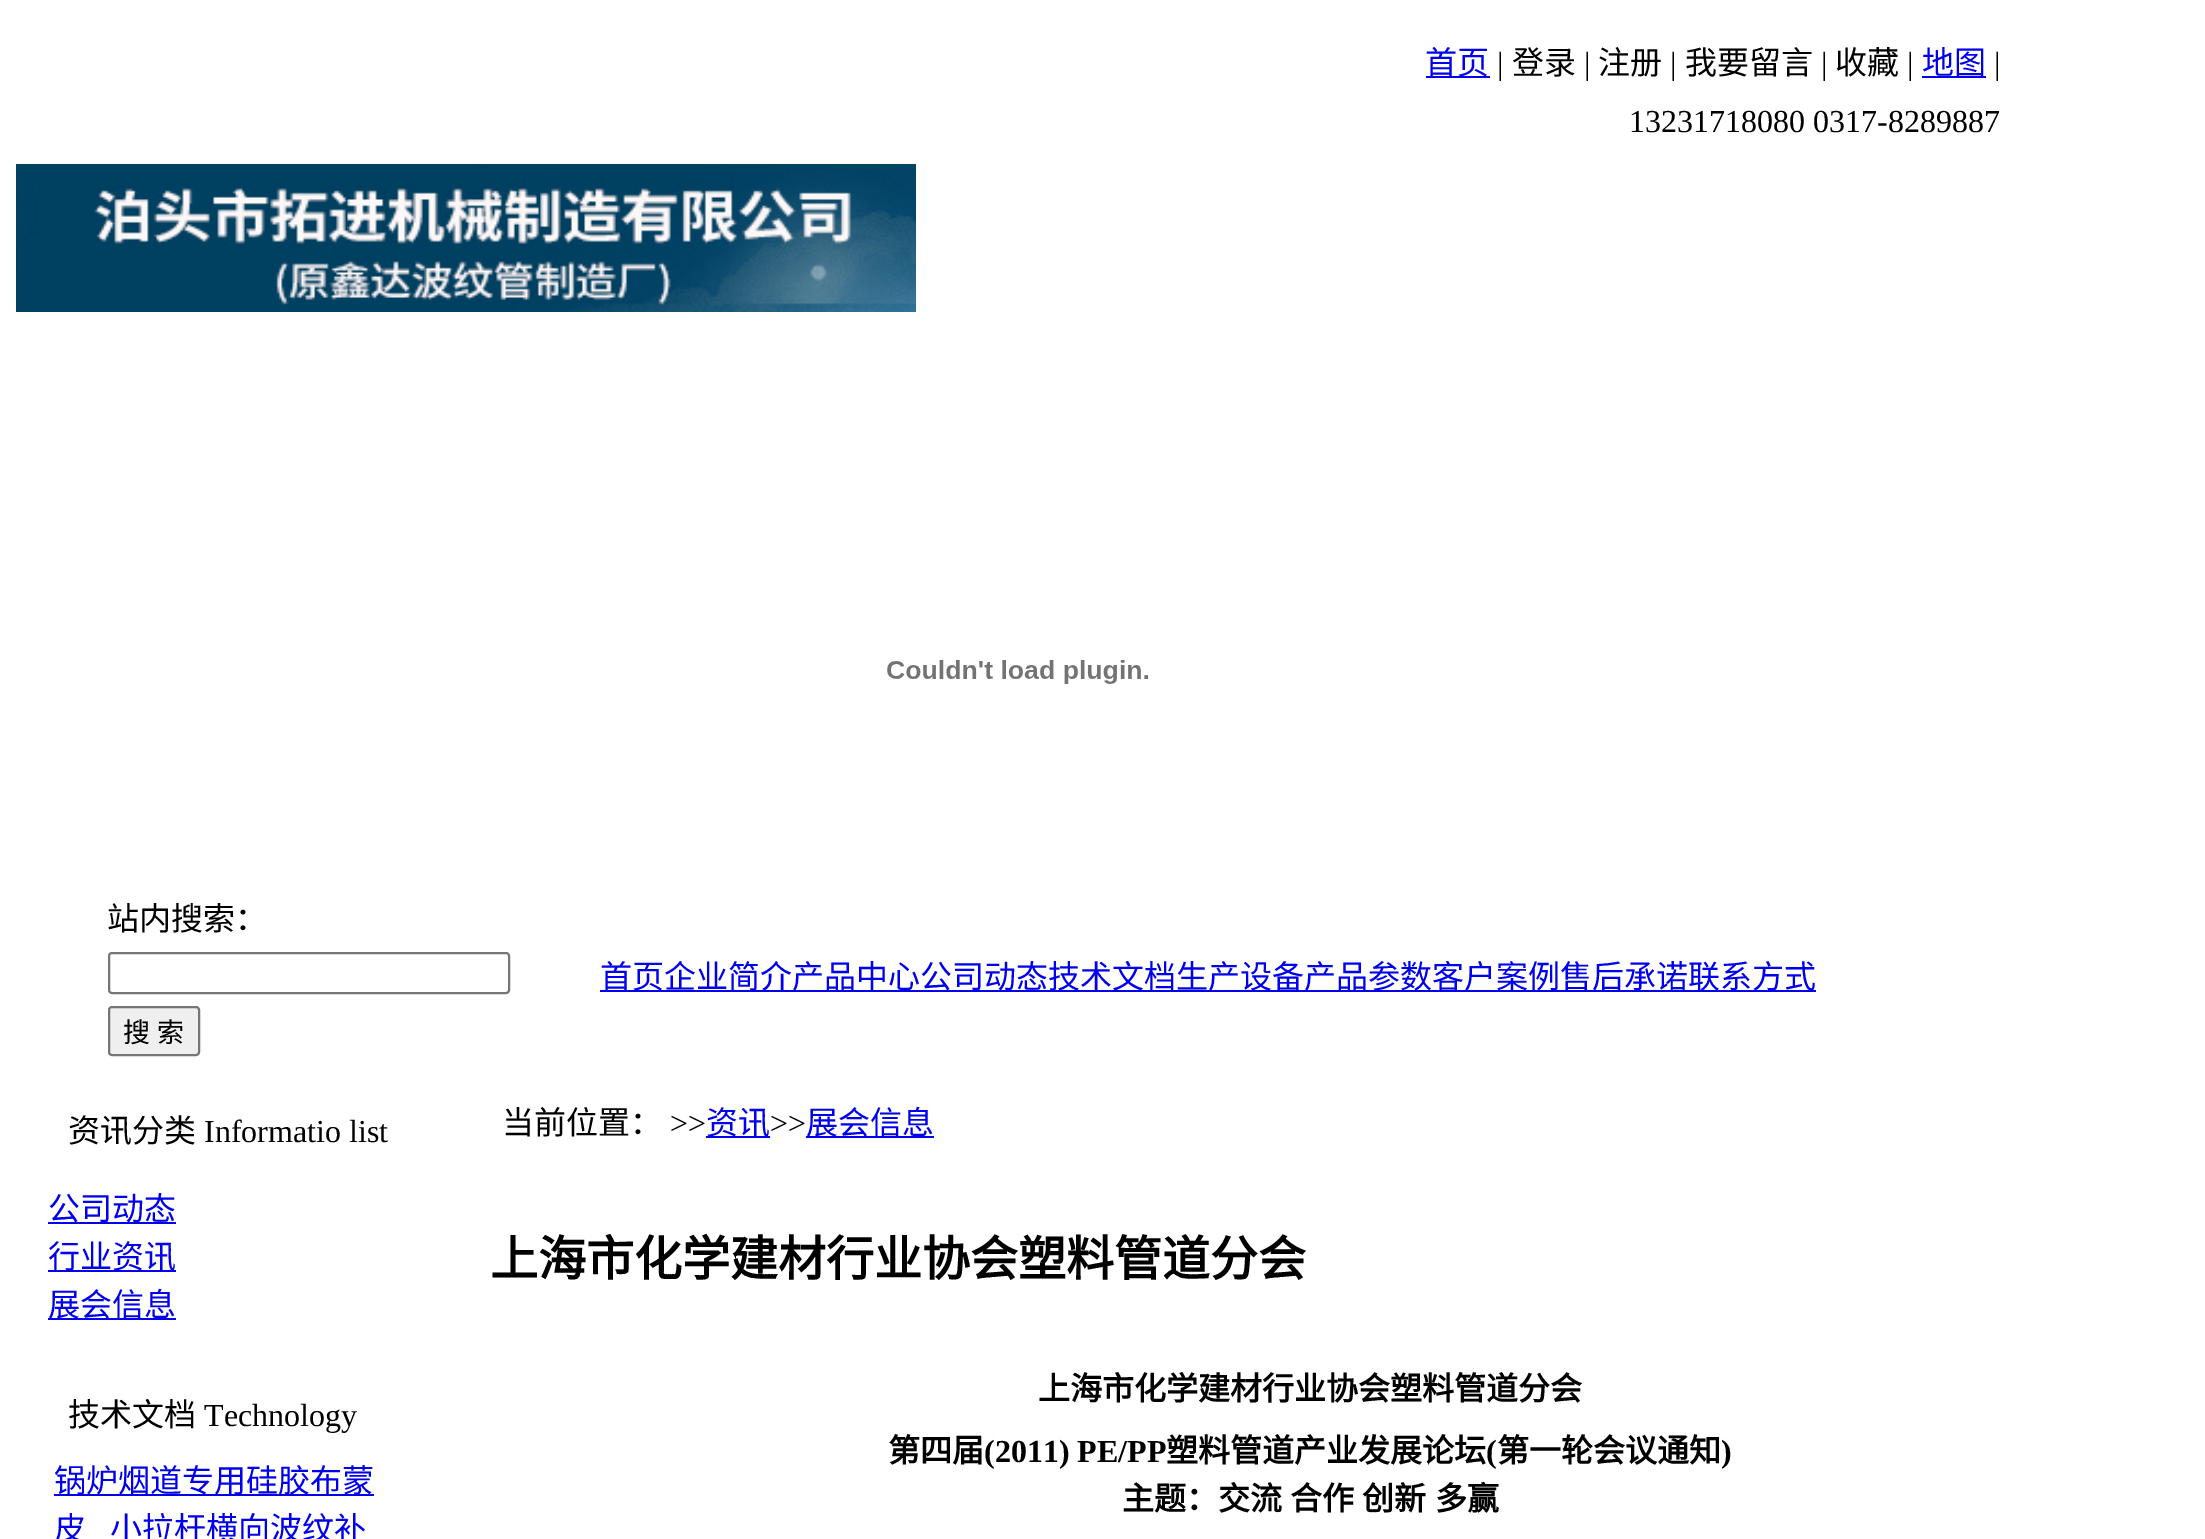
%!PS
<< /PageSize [2205 1539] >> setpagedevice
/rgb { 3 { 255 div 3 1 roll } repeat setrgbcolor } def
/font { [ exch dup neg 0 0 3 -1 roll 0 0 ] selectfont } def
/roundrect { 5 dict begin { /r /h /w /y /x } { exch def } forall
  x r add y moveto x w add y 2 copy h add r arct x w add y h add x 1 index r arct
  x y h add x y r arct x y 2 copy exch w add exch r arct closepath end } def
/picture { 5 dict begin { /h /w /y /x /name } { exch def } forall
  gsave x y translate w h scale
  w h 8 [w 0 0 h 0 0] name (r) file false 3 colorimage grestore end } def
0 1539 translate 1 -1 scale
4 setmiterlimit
255 255 255 rgb
0 0 2205 1539 rectfill
0 0 238 rgb
1426 76 64 2 rectfill
1922 76 64 2 rectfill
(img/1.rgb) 16 164 900 148 picture
(img/2.rgb) 887 660 262 24 picture
118 118 118 rgb
2 setlinewidth
109 953 400 40 3 roundrect stroke
239 239 239 rgb
109 1007 90 48 3 roundrect gsave fill grestore
118 118 118 rgb
stroke
[
  [600 990 1216 2 0 0 238]
  [48 1222 128 2 0 0 238]
  [48 1270 128 2 0 0 238]
  [48 1318 128 2 0 0 238]
  [54 1494 320 2 0 0 238]
  [706 1136 64 2 0 0 238]
  [806 1136 128 2 0 0 238]
] { aload pop rgb rectfill } forall
/NotoSansCJKSC-Regular 32 font
1425 74 moveto (首页) show
/LiberationSerif-Regular 32 font
0 0 0 rgb
1497 74 moveto (|) show
/NotoSansCJKSC-Regular 32 font
1512 74 moveto (登录) show
/LiberationSerif-Regular 32 font
1584 74 moveto (|) show
/NotoSansCJKSC-Regular 32 font
1598 74 moveto (注册) show
/LiberationSerif-Regular 32 font
1670 74 moveto (|) show
/NotoSansCJKSC-Regular 32 font
1685 74 moveto (我要留言) show
/LiberationSerif-Regular 32 font
1821 74 moveto (|) show
/NotoSansCJKSC-Regular 32 font
1835 74 moveto (收藏) show
/LiberationSerif-Regular 32 font
1907 74 moveto (|) show
/NotoSansCJKSC-Regular 32 font
0 0 238 rgb
1922 74 moveto (地图) show
/LiberationSerif-Regular 32 font
0 0 0 rgb
1994 74 moveto (|) show
1629 132 moveto (13231718080 0317-8289887) show
/NotoSansCJKSC-Regular 32 font
107 930 moveto (站内搜索：) show
/NotoSansCJKSC-Regular 27 font
123 1042 moveto 1 0 32 (搜 索) widthshow
/NotoSansCJKSC-Regular 32 font
0 0 238 rgb
600 988 moveto (首页企业简介产品中心公司动态技术文档生产设备产品参数客户案例售后承诺联系方式) show
0 0 0 rgb
68 1142 moveto (资讯分类) show
/LiberationSerif-Regular 32 font
204 1142 moveto (Informatio list) show
/NotoSansCJKSC-Regular 32 font
0 0 238 rgb
[
  [(公司动态) 48 1220]
  [(行业资讯) 48 1268]
  [(展会信息) 48 1316]
] { aload pop moveto show } forall
0 0 0 rgb
68 1426 moveto (技术文档) show
/LiberationSerif-Regular 32 font
204 1426 moveto (Technology) show
/NotoSansCJKSC-Regular 32 font
0 0 238 rgb
[
  [(锅炉烟道专用硅胶布蒙) 54 1492]
  [(皮) 54 1540]
  [(小拉杆横向波纹补) 110 1540]
] { aload pop moveto show } forall
0 0 0 rgb
502 1134 moveto (当前位置：) show
/LiberationSerif-Regular 32 font
670 1134 moveto (>>) show
/NotoSansCJKSC-Regular 32 font
0 0 238 rgb
706 1134 moveto (资讯) show
/LiberationSerif-Regular 32 font
0 0 0 rgb
770 1134 moveto (>>) show
/NotoSansCJKSC-Regular 32 font
0 0 238 rgb
806 1134 moveto (展会信息) show
/NotoSansCJKSC-Bold 48 font
0 0 0 rgb
490 1276 moveto (上海市化学建材行业协会塑料管道分会) show
/NotoSansCJKSC-Bold 32 font
1038 1400 moveto (上海市化学建材行业协会塑料管道分会) show
888 1462 moveto (第四届) show
/LiberationSerif-Bold 32 font
984 1462 moveto (\(2011\) PE/PP) show
/NotoSansCJKSC-Bold 32 font
1166 1462 moveto (塑料管道产业发展论坛) show
/LiberationSerif-Bold 32 font
1486 1462 moveto (\() show
/NotoSansCJKSC-Bold 32 font
1497 1462 moveto (第一轮会议通知) show
/LiberationSerif-Bold 32 font
1721 1462 moveto (\)) show
/NotoSansCJKSC-Bold 32 font
1122 1510 moveto 1 0 32 (主题：交流 合作 创新 多赢) widthshow
showpage
